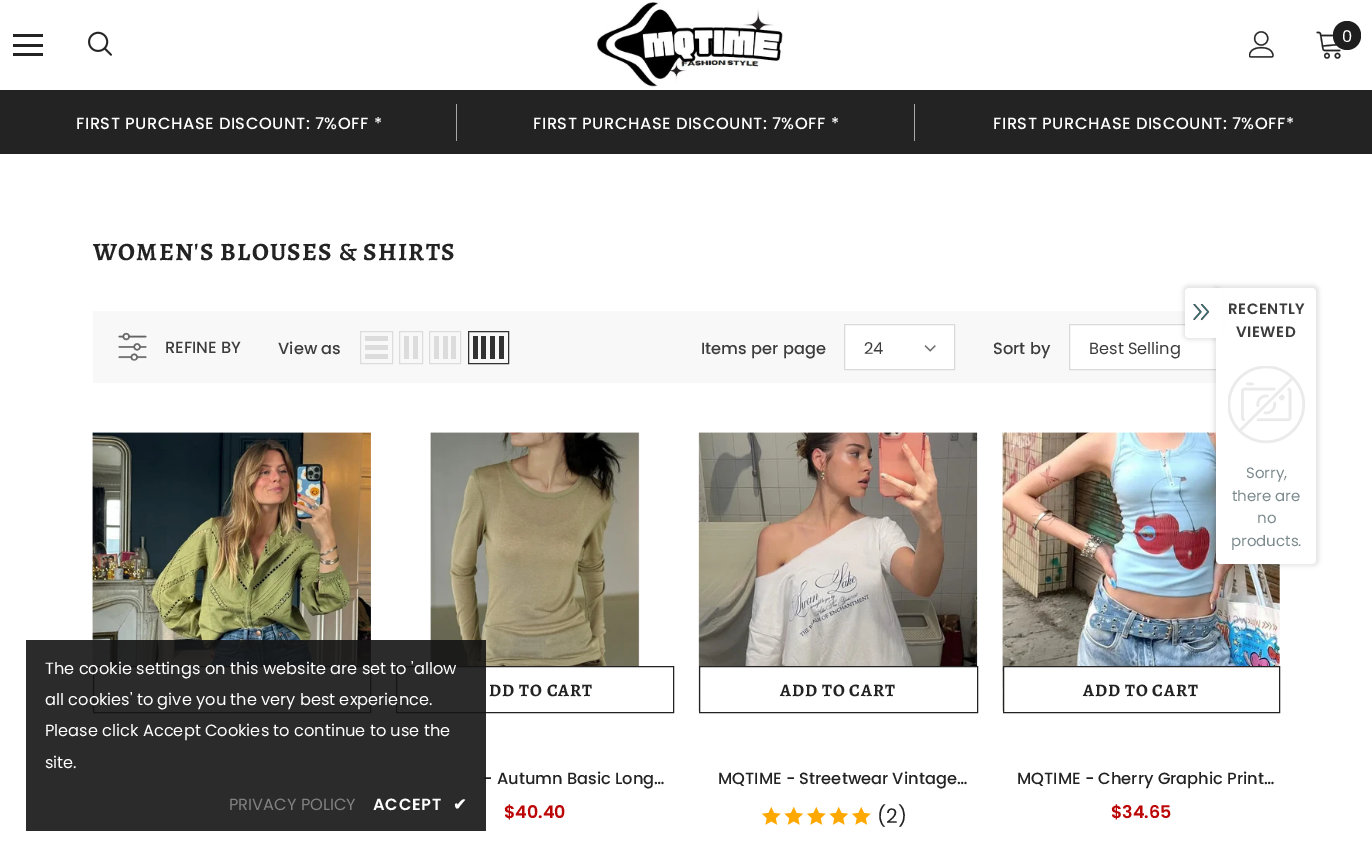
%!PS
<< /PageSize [1372 849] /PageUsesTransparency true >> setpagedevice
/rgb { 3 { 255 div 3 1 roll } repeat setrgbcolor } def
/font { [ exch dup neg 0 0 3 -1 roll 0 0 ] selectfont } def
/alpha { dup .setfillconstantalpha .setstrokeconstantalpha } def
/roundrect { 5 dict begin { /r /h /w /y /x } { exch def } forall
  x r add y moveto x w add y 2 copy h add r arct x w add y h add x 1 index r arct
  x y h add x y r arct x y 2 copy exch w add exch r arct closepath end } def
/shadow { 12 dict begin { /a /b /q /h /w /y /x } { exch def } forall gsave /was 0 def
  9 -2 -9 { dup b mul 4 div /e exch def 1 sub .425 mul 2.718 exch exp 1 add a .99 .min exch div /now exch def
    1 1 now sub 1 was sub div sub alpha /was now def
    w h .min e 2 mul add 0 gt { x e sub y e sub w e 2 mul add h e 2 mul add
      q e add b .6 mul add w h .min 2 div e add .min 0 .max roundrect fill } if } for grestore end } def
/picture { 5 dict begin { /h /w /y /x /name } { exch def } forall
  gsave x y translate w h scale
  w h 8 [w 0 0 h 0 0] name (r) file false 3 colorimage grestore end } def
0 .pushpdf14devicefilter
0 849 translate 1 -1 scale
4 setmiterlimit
255 255 255 rgb
0 0 1372 849 rectfill
[
  [13 34 30 3 35 35 35]
  [13 44 30 3 35 35 35]
  [13 53 30 3 35 35 35]
] { aload pop rgb rectfill } forall
(img/1.rgb) 88 31 24 25 picture
(img/2.rgb) 597 2 186 85 picture
(img/3.rgb) 1249 31 25 27 picture
(img/4.rgb) 1316 31 25 28 picture
30 30 30 rgb
1333 21 28 29 14 roundrect fill
[
  [0 90 1372 64 35 35 35]
  [456 104 1 37 167 167 167]
  [914 104 1 37 167 167 167]
  [93 311 1123 72 248 248 248]
] { aload pop rgb rectfill } forall
(img/5.rgb) 118 332 29 29 picture
220 220 220 rgb
360.5 331.5 32 32 rectstroke
[
  [365 354 23 5 220 220 220]
  [365 345 23 5 220 220 220]
  [365 336 23 5 220 220 220]
] { aload pop rgb rectfill } forall
399.5 331.5 23 32 rectstroke
413 336 5 23 rectfill
404 336 5 23 rectfill
429.5 331.5 31 32 rectstroke
[
  [451 336 5 23 220 220 220]
  [443 336 5 23 220 220 220]
  [434 336 5 23 220 220 220]
] { aload pop rgb rectfill } forall
50 50 50 rgb
468.5 331.5 40 32 rectstroke
[
  [499 336 5 23 50 50 50]
  [490 336 5 23 50 50 50]
  [481 336 5 23 50 50 50]
  [473 336 5 23 50 50 50]
] { aload pop rgb rectfill } forall
255 255 255 rgb
844.5 324.5 moveto 954.5 324.5 lineto 954.5 369.5 lineto 844.5 369.5 lineto closepath gsave fill grestore
218 218 218 rgb
stroke
(img/6.rgb) 924 345 12 7 picture
255 255 255 rgb
1070 325 146 44 rectfill
218 218 218 rgb
1069.5 324.5 185 45 rectstroke
(img/7.rgb) 92 432 279 279 picture
255 255 255 rgb
94 667 276 44 rectfill
35 35 35 rgb
93.5 666.5 277 46 rectstroke
(img/8.rgb) 430 432 210 234 picture
396.5 666.5 277 46 rectstroke
(img/9.rgb) 698 432 280 279 picture
255 255 255 rgb
700 667 277 44 rectfill
35 35 35 rgb
699.5 666.5 278 46 rectstroke
(img/10.rgb) 761 806 20 19 picture
(img/11.rgb) 784 806 20 19 picture
(img/10.rgb) 806 806 20 19 picture
(img/11.rgb) 829 806 20 19 picture
(img/10.rgb) 851 806 20 19 picture
(img/12.rgb) 1002 432 278 279 picture
255 255 255 rgb
1004 667 275 44 rectfill
35 35 35 rgb
1003.5 666.5 276 46 rectstroke
0 0 0 rgb
1214 285 105 281 6 2 0.1 shadow
255 255 255 rgb
1216 288 moveto 1312 288 lineto 1314 288 1316 290 1316 292 curveto 1316 560 lineto 1316 562 1314 564 1312 564 curveto 1220 564 lineto 1218 564 1216 562 1216 560 curveto closepath fill
0 0 0 rgb
1183 285 37 55 6 2 0.1 shadow
255 255 255 rgb
1189 288 moveto 1218 288 lineto 1218 338 lineto 1189 338 lineto 1187 338 1185 336 1185 334 curveto 1185 292 lineto 1185 290 1187 288 1189 288 curveto closepath fill
(img/13.rgb) 1193 304 17 17 picture
1216 288 7 54 rectfill
(img/14.rgb) 1228 366 77 78 picture
/Poppins-Regular 16.25 font
1342 42 moveto (0) show
/Poppins-Medium 16.25 font
76 129 moveto 0.5 0 (FIRST PURCHASE DISCOUNT: 7%OFF *) ashow
533 129 moveto 0.5 0 (FIRST PURCHASE DISCOUNT: 7%OFF *) ashow
993 129 moveto 0.5 0 (FIRST PURCHASE DISCOUNT: 7%OFF*) ashow
/Alegreya-Bold 25 font
35 35 35 rgb
93 260 moveto 1.25 0 (WOMEN'S BLOUSES & SHIRTS) ashow
/Poppins-Medium 16.25 font
60 60 60 rgb
[
  [(REFINE BY) 165 353]
  [(View as) 278 354]
  [(Items per page) 701 354]
] { aload pop moveto show } forall
/Poppins-Regular 16.25 font
864 354 moveto (24) show
/Poppins-Medium 16.25 font
993 354 moveto (Sort by) show
/Poppins-Regular 16.25 font
1089 354 moveto (Best Selling) show
/Alegreya-Bold 17.5 font
35 35 35 rgb
489 696 moveto 0.9 0 (DD TO CART) ashow
/Poppins-Medium 16.25 font
483 784 moveto (- Autumn Basic Long…) show
/Poppins-SemiBold 17.5 font
188 7 7 rgb
504 818 moveto ($40.40) show
/Alegreya-Bold 17.5 font
35 35 35 rgb
780 696 moveto 0.9 0 (ADD TO CART) ashow
/Poppins-Medium 16.25 font
718 784 moveto (MQTIME - Streetwear Vintage…) show
/Poppins-Regular 20 font
877 823 moveto (\(2\)) show
/Alegreya-Bold 17.5 font
1083 696 moveto 0.9 0 (ADD TO CART) ashow
/Poppins-Medium 16.25 font
1017 784 moveto (MQTIME - Cherry Graphic Print…) show
/Poppins-SemiBold 17.5 font
188 7 7 rgb
1111 818 moveto ($34.65) show
0.9 alpha
20 20 20 rgb
26 640 460 191 rectfill
/Poppins-Regular 16.25 font
1 alpha
255 255 255 rgb
[
  [(The cookie settings on this website are set to 'allow) 45 674]
  [(all cookies' to give you the very best experience.) 45 705]
  [(Please click Accept Cookies to continue to use the) 45 736]
  [(site.) 45 768]
] { aload pop moveto show } forall
129 129 129 rgb
229 810 moveto (PRIVACY POLICY) show
/Poppins-SemiBold 16.25 font
255 255 255 rgb
373 810 moveto 0.75 0 (ACCEPT) ashow
/DejaVuSans-Bold 16.25 font
453 810 moveto 0.75 0 (✔) ashow
/Poppins-SemiBold 15 font
60 60 60 rgb
1228 314 moveto 0.5 0 (RECENTLY) ashow
1236 337 moveto 0.5 0 (VIEWED) ashow
/Poppins-Regular 15 font
125 139 142 rgb
[
  [(Sorry,) 1246 478]
  [(there are) 1232 501]
  [(no) 1257 523]
  [(products.) 1231 546]
] { aload pop moveto show } forall
.poppdf14devicefilter showpage
